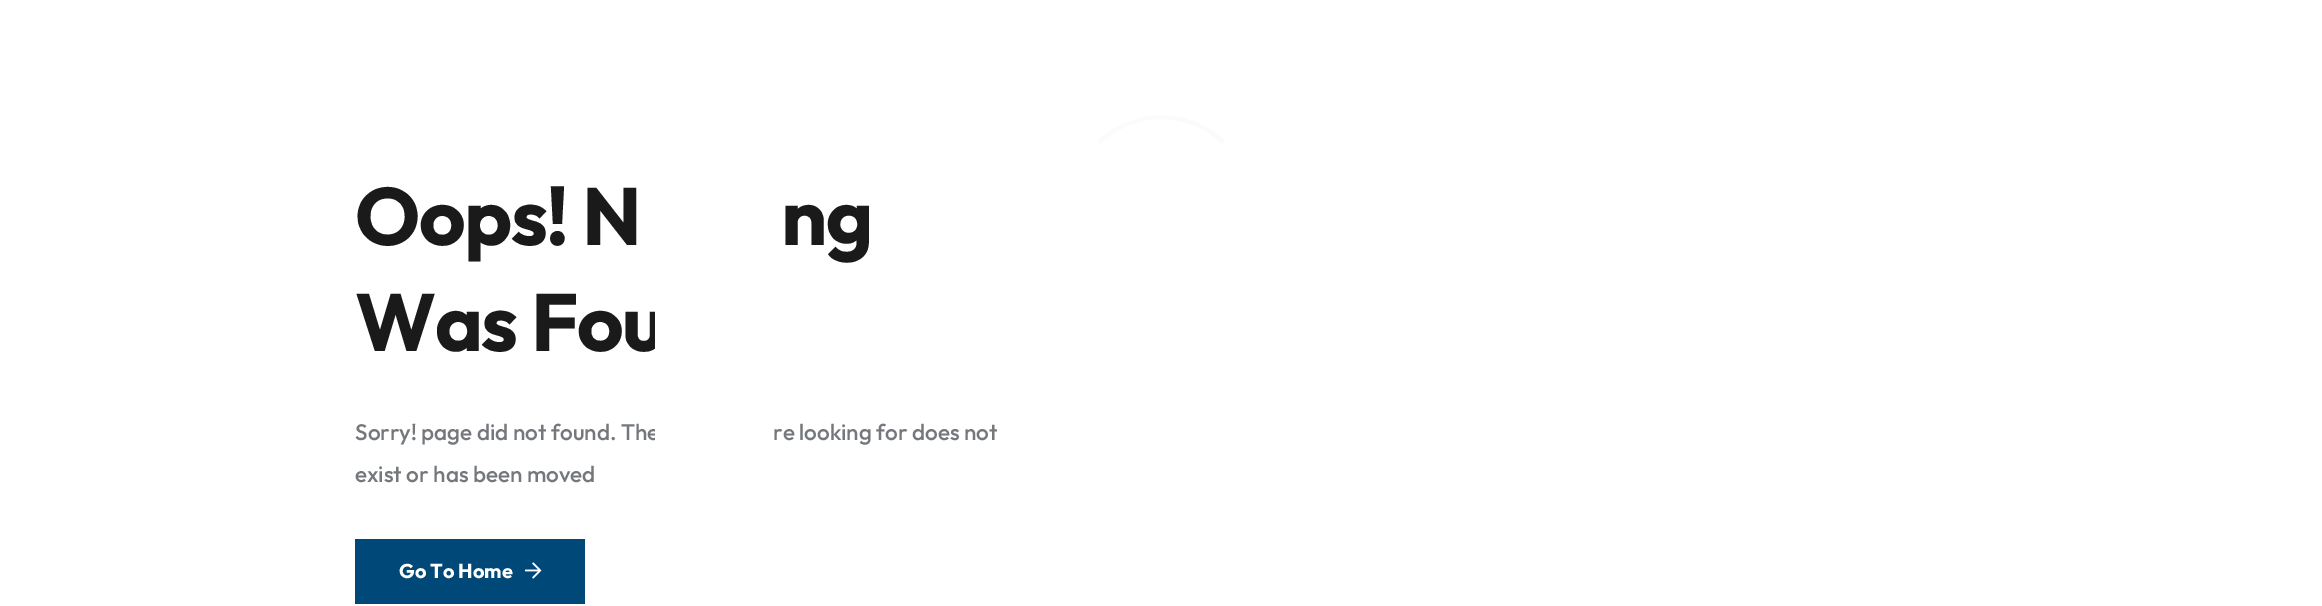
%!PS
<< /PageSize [2322 606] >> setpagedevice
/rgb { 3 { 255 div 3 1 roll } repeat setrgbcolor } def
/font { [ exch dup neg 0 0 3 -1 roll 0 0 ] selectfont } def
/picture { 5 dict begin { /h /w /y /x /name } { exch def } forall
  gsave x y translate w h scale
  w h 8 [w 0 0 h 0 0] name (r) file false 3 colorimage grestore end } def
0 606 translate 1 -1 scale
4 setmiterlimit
255 255 255 rgb
0 0 2322 606 rectfill
251 251 251 rgb
3.8 setlinewidth
1099 142.5 moveto 1133 108.5 1189.5 108.5 1223.5 142.5 curveto stroke
0 72 120 rgb
355 539 230 65 rectfill
(img/1.rgb) 525 562 17 17 picture
/Outfit-Bold 81 font
26 26 26 rgb
355 245 moveto -1.5 0 (Oops! N) ashow
781 245 moveto -1.5 0 (ng) ashow
355 351 moveto -1.5 0 (Was Fou) ashow
/Outfit-Medium 22.5 font
116 120 124 rgb
355 440 moveto (Sorry! page did not found. The) show
773 440 moveto (re looking for does not) show
255 255 255 rgb
655 311 119 129 rectfill
116 120 124 rgb
355 482 moveto (exist or has been moved) show
/Outfit-Bold 20 font
255 255 255 rgb
399 578 moveto (Go To Home) show
showpage
